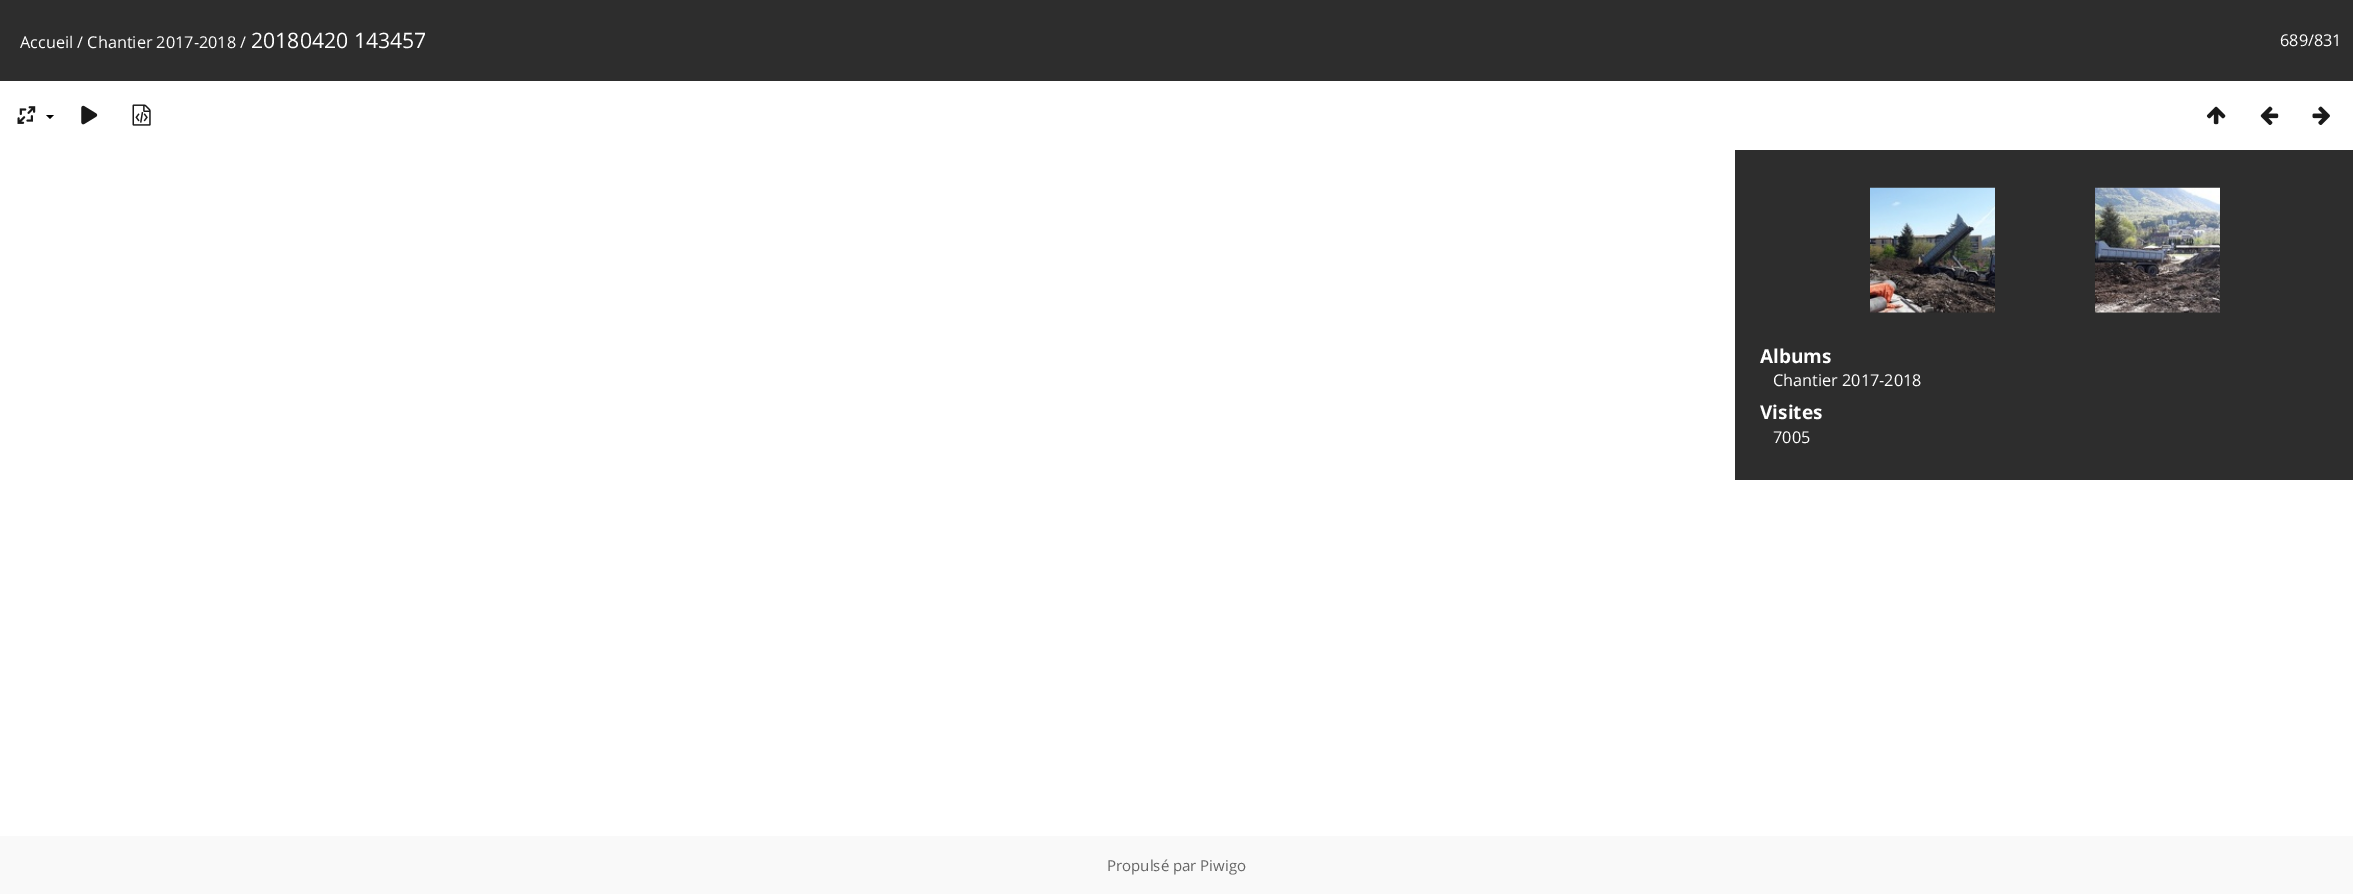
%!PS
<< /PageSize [2353 894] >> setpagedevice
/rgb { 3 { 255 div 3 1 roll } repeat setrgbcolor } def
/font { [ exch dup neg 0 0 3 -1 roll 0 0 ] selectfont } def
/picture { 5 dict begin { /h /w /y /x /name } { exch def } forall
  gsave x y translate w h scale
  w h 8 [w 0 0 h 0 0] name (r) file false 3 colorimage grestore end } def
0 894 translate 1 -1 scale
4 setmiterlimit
255 255 255 rgb
0 0 2353 894 rectfill
45 45 45 rgb
0 0 2353 81 rectfill
(img/1.rgb) 17 106 19 18 picture
0 0 0 rgb
46 115 moveto 54 115 lineto 50 119 lineto closepath fill
(img/2.rgb) 81 105 17 20 picture
(img/3.rgb) 132 104 19 22 picture
(img/4.rgb) 2206 106 20 19 picture
(img/5.rgb) 2260 106 19 19 picture
(img/6.rgb) 2312 106 18 19 picture
45 45 45 rgb
1735 150 618 330 rectfill
(img/7.rgb) 1870 187 125 126 picture
(img/8.rgb) 2095 187 125 126 picture
249 249 249 rgb
0 836 2353 58 rectfill
/OpenSans-Regular 16.25 font
255 255 255 rgb
20 48 moveto (Accueil / Chantier 2017-2018 /) show
/OpenSans-Regular 21.25 font
251 48 moveto (20180420 143457) show
/OpenSans-Regular 16.25 font
2280 46 moveto (689/831) show
/OpenSans-Bold 19 font
1760 363 moveto (Albums) show
/OpenSans-Regular 16.25 font
1773 386 moveto (Chantier 2017-2018) show
/OpenSans-Bold 19 font
1760 419 moveto (Visites) show
/OpenSans-Regular 16.25 font
1773 443 moveto (7005) show
/OpenSans-Regular 15 font
102 102 102 rgb
1107 871 moveto (Propulsé par Piwigo) show
showpage
